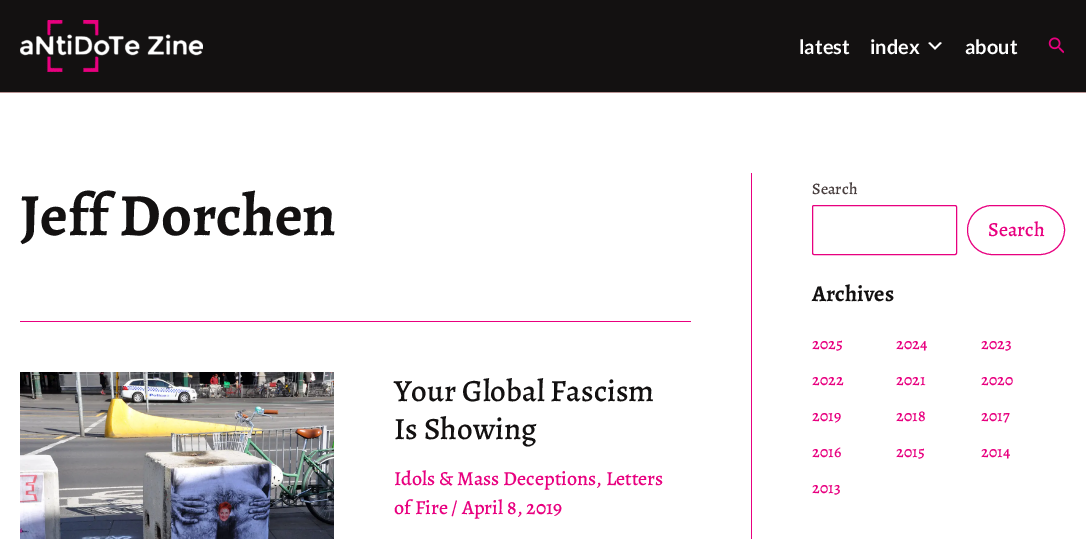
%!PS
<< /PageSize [1086 539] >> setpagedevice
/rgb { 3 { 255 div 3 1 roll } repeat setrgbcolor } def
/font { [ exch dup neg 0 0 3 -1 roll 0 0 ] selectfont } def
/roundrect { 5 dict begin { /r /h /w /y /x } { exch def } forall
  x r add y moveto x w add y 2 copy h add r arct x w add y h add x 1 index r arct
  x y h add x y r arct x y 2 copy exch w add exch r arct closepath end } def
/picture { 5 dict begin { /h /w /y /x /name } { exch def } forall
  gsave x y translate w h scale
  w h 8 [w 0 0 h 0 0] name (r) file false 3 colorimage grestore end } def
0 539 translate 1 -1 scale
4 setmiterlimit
255 255 255 rgb
0 0 1086 539 rectfill
19 17 17 rgb
0 0 1086 92 rectfill
184 147 147 rgb
0 92 1086 1 rectfill
(img/1.rgb) 20 20 183 52 picture
(img/2.rgb) 928 42 14 8 picture
(img/3.rgb) 1048 37 16 17 picture
232 0 127 rgb
751 173 1 366 rectfill
20 321 671 1 rectfill
(img/4.rgb) 20 372 314 167 picture
812.5 205.5 144 49 1.5 roundrect stroke
967.5 205.5 97 49 24.5 roundrect stroke
/Lato-Bold 20 font
255 255 255 rgb
[
  [(latest) 799 54]
  [(index) 870 54]
  [(about) 965 54]
] { aload pop moveto show } forall
/Alegreya-Bold 60 font
19 17 17 rgb
20 235 moveto (Jeff Dorchen) show
/Alegreya-Medium 31 font
394 401 moveto (Your Global Fascism) show
394 439 moveto (Is Showing) show
/Alegreya-Medium 20 font
232 0 127 rgb
394 485 moveto (Idols & Mass Deceptions, Letters) show
394 514 moveto (of Fire / April 8, 2019) show
/Alegreya-Medium 16 font
71 61 61 rgb
812 194 moveto (Search) show
/Alegreya-Medium 20 font
232 0 127 rgb
988 236 moveto (Search) show
/Alegreya-Bold 22.5 font
19 17 17 rgb
812 301 moveto (Archives) show
/Alegreya-Medium 16 font
232 0 127 rgb
[
  [(2025) 812 349]
  [(2024) 896 349]
  [(2023) 981 349]
  [(2022) 812 385]
  [(2021) 896 385]
  [(2020) 981 385]
  [(2019) 812 421]
  [(2018) 896 421]
  [(2017) 981 421]
  [(2016) 812 457]
  [(2015) 896 457]
  [(2014) 981 457]
  [(2013) 812 493]
] { aload pop moveto show } forall
showpage
